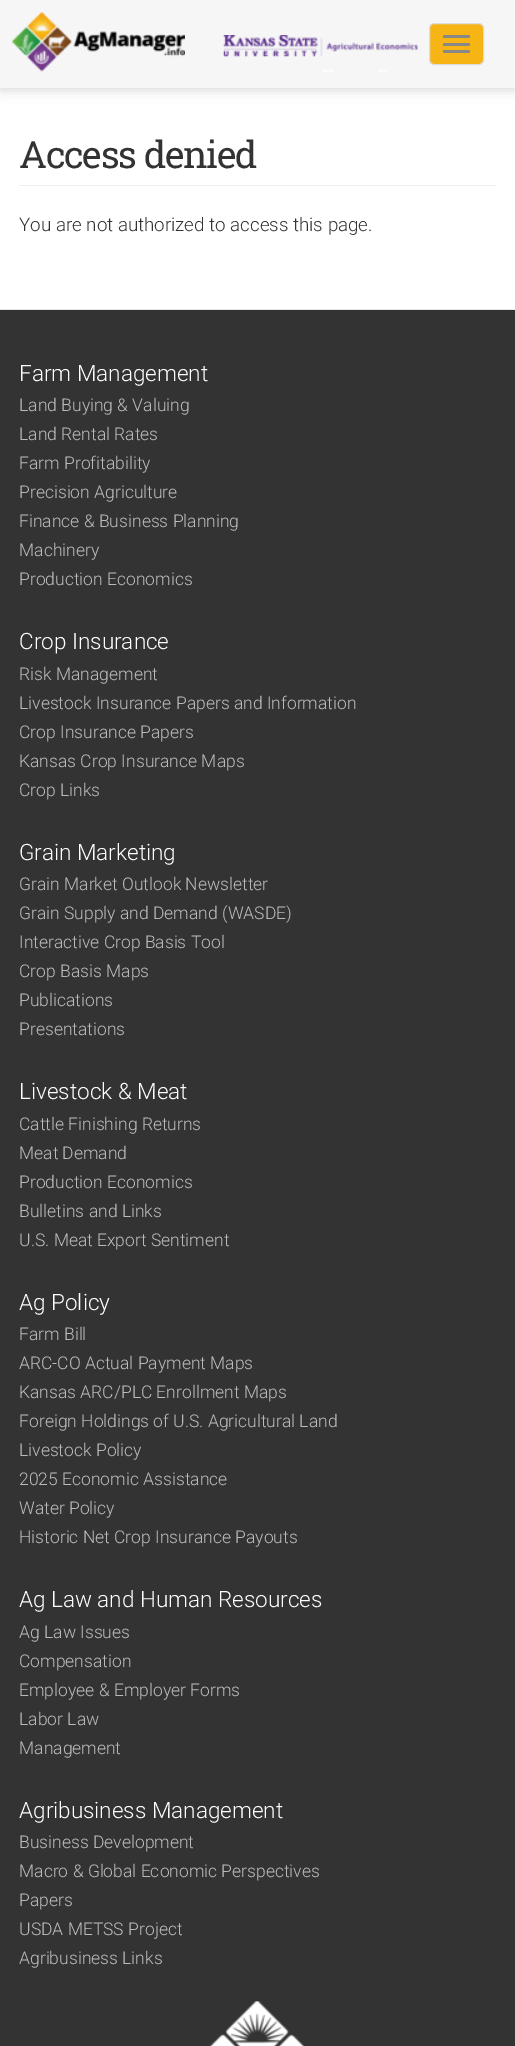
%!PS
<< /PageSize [515 2046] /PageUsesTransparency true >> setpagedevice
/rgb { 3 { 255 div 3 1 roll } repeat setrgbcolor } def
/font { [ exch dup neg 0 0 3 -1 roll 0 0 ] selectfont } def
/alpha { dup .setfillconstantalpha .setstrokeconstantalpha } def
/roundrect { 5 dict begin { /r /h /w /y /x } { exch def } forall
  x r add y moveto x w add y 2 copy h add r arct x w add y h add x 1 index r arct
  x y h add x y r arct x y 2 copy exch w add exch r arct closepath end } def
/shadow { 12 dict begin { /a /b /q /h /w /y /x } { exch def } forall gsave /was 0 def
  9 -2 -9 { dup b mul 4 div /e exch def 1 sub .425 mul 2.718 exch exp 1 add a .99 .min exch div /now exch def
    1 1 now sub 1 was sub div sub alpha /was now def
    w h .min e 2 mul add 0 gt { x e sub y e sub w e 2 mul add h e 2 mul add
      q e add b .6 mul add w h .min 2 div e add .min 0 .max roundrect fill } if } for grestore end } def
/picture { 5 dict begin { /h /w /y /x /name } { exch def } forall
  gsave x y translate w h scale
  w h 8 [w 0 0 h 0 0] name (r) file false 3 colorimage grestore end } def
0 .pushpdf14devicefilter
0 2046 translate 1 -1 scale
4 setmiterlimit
255 255 255 rgb
0 0 515 2046 rectfill
gsave
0 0 moveto 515 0 lineto 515 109 lineto 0 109 lineto closepath 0 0 moveto 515 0 lineto 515 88 lineto 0 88 lineto closepath eoclip newpath
0 0 0 rgb
0 3 515 87 0 6 0.16 shadow
grestore
0.85 alpha
245 245 245 rgb
0 0 515 88 rectfill
1 alpha
(img/1.rgb) 12 12 173 60 picture
(img/2.rgb) 223 35 195 38 picture
246 180 21 rgb
429.5 23.5 54 41 4.5 roundrect gsave fill grestore
221 221 221 rgb
stroke
136 136 136 rgb
443 35 27 3 1.5 roundrect fill
443 43 27 3 1.5 roundrect fill
443 50 27 3 1.5 roundrect fill
[
  [19 185 477 1 238 238 238]
  [0 310 515 1736 51 51 51]
  [0 309 515 1 229 229 229]
] { aload pop rgb rectfill } forall
(img/3.rgb) 210 2001 94 45 picture
/RobotoSlab-Regular 37.5 font
51 51 51 rgb
19 168 moveto -1.25 0 (Access denied) ashow
/Roboto-Light 18.75 font
19 231 moveto (You are not authorized to access this page.) show
/Roboto-Light 22.5 font
255 255 255 rgb
19 381 moveto (Farm Management) show
/Roboto-Light 17.5 font
187 187 187 rgb
[
  [(Land Buying & Valuing) 19 411]
  [(Land Rental Rates) 19 440]
  [(Farm Profitability) 19 469]
  [(Precision Agriculture) 19 498]
  [(Finance & Business Planning) 19 527]
  [(Machinery) 19 556]
  [(Production Economics) 19 585]
] { aload pop moveto show } forall
/Roboto-Light 22.5 font
255 255 255 rgb
19 649 moveto (Crop Insurance) show
/Roboto-Light 17.5 font
187 187 187 rgb
[
  [(Risk Management) 19 680]
  [(Livestock Insurance Papers and Information) 19 709]
  [(Crop Insurance Papers) 19 738]
  [(Kansas Crop Insurance Maps) 19 767]
  [(Crop Links) 19 796]
] { aload pop moveto show } forall
/Roboto-Light 22.5 font
255 255 255 rgb
19 860 moveto (Grain Marketing) show
/Roboto-Light 17.5 font
187 187 187 rgb
[
  [(Grain Market Outlook Newsletter) 19 890]
  [(Grain Supply and Demand \(WASDE\)) 19 919]
  [(Interactive Crop Basis Tool) 19 948]
  [(Crop Basis Maps) 19 977]
  [(Publications) 19 1006]
  [(Presentations) 19 1035]
] { aload pop moveto show } forall
/Roboto-Light 22.5 font
255 255 255 rgb
19 1099 moveto (Livestock & Meat) show
/Roboto-Light 17.5 font
187 187 187 rgb
[
  [(Cattle Finishing Returns) 19 1130]
  [(Meat Demand) 19 1159]
  [(Production Economics) 19 1188]
  [(Bulletins and Links) 19 1217]
  [(U.S. Meat Export Sentiment) 19 1246]
] { aload pop moveto show } forall
/Roboto-Light 22.5 font
255 255 255 rgb
19 1310 moveto (Ag Policy) show
/Roboto-Light 17.5 font
187 187 187 rgb
[
  [(Farm Bill) 19 1340]
  [(ARC-CO Actual Payment Maps) 19 1369]
  [(Kansas ARC/PLC Enrollment Maps) 19 1398]
  [(Foreign Holdings of U.S. Agricultural Land) 19 1427]
  [(Livestock Policy) 19 1456]
  [(2025 Economic Assistance) 19 1485]
  [(Water Policy) 19 1514]
  [(Historic Net Crop Insurance Payouts) 19 1543]
] { aload pop moveto show } forall
/Roboto-Light 22.5 font
255 255 255 rgb
19 1607 moveto (Ag Law and Human Resources) show
/Roboto-Light 17.5 font
187 187 187 rgb
[
  [(Ag Law Issues) 19 1638]
  [(Compensation) 19 1667]
  [(Employee & Employer Forms) 19 1696]
  [(Labor Law) 19 1725]
  [(Management) 19 1754]
] { aload pop moveto show } forall
/Roboto-Light 22.5 font
255 255 255 rgb
19 1818 moveto (Agribusiness Management) show
/Roboto-Light 17.5 font
187 187 187 rgb
[
  [(Business Development) 19 1848]
  [(Macro & Global Economic Perspectives) 19 1877]
  [(Papers) 19 1906]
  [(USDA METSS Project) 19 1935]
  [(Agribusiness Links) 19 1964]
] { aload pop moveto show } forall
.poppdf14devicefilter showpage
